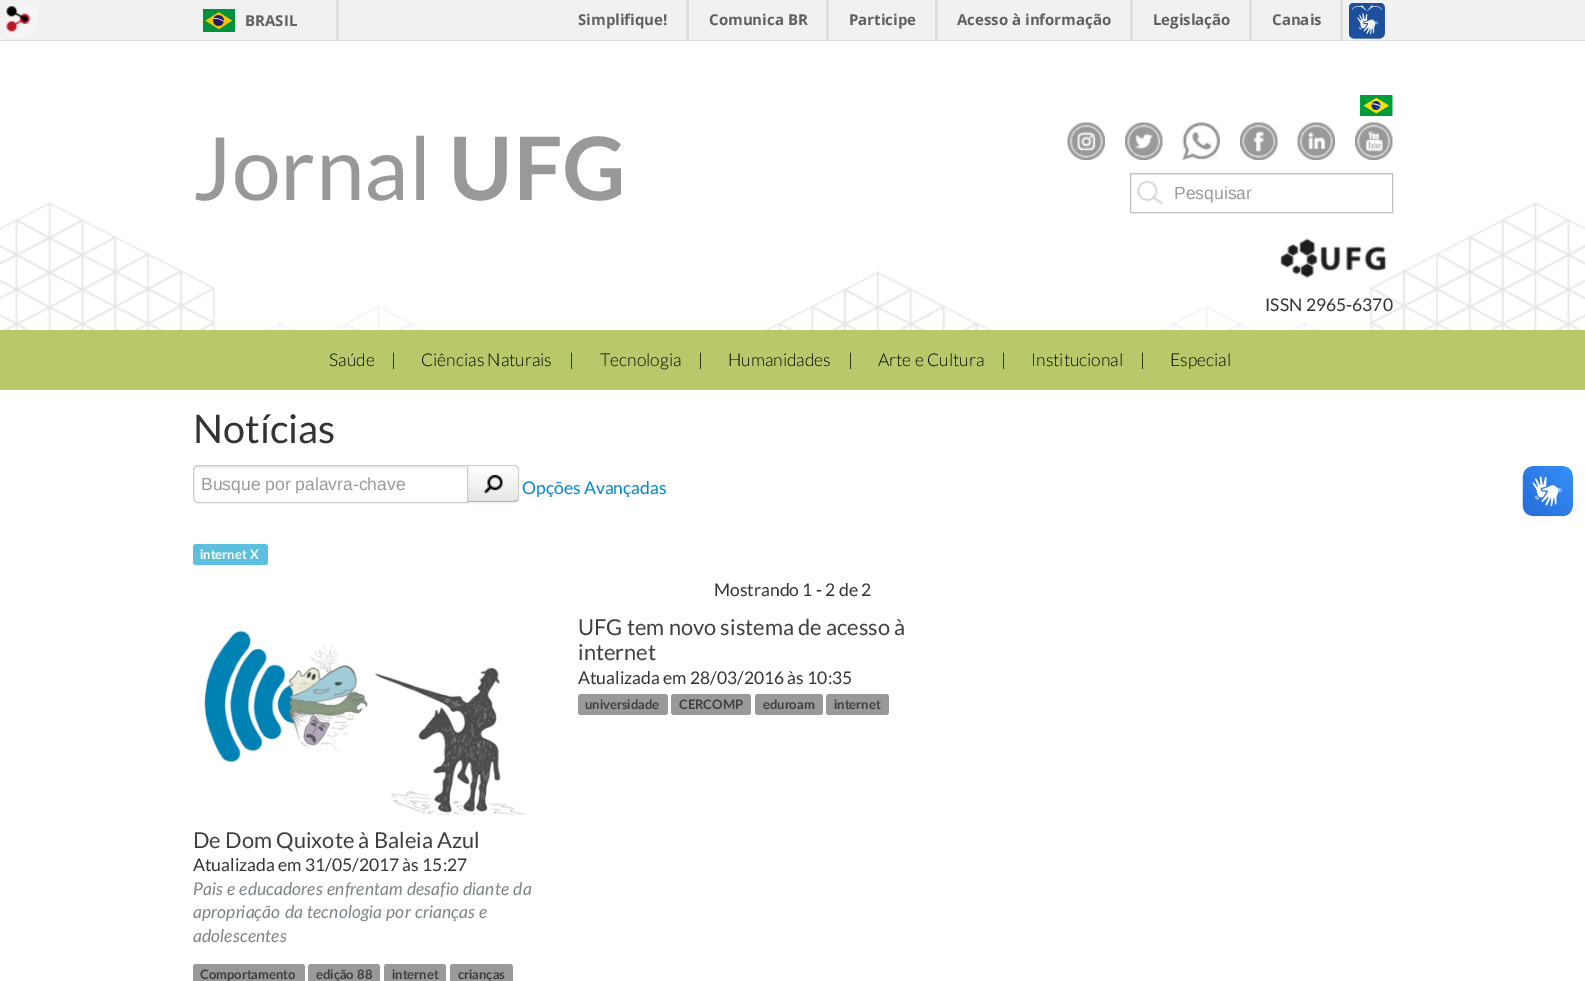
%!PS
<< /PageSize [1585 981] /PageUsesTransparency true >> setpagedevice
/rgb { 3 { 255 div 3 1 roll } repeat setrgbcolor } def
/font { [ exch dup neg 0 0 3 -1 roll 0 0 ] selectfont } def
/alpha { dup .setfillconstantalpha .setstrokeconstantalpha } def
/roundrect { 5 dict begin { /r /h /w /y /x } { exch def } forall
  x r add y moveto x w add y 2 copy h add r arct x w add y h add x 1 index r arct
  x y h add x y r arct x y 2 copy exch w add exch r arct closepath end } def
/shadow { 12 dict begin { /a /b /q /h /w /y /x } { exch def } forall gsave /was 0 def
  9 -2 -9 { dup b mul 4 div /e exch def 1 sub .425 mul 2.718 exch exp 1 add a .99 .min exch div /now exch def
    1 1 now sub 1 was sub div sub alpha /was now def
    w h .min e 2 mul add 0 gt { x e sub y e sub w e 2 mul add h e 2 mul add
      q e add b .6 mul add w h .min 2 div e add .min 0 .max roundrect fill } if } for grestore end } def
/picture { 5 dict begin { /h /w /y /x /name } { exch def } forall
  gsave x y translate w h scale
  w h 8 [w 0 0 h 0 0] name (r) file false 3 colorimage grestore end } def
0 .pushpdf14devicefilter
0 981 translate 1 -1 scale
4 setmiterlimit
255 255 255 rgb
0 0 1585 981 rectfill
241 241 241 rgb
0 0 1585 40 rectfill
(img/1.rgb) 6 6 32 31 picture
223 223 223 rgb
0 40 1585 1 rectfill
336 0 3 40 rectfill
(img/2.rgb) 203 9 32 23 picture
[
  [686 0 3 40 223 223 223]
  [826 0 3 40 223 223 223]
  [935 0 3 40 223 223 223]
  [1130 0 3 40 223 223 223]
  [1249 0 3 40 223 223 223]
  [1340 0 3 40 223 223 223]
] { aload pop rgb rectfill } forall
(img/3.rgb) 1349 3 36 36 picture
(img/4.rgb) 0 202 1585 128 picture
(img/5.rgb) 1360 95 33 21 picture
(img/6.rgb) 1067 122 38 38 picture
(img/7.rgb) 1125 122 38 38 picture
(img/8.rgb) 1182 122 38 38 picture
(img/9.rgb) 1240 122 38 38 picture
(img/10.rgb) 1297 122 38 38 picture
(img/11.rgb) 1355 122 38 38 picture
(img/12.rgb) 1137 181 26 24 picture
236 236 236 rgb
1131 174 260 1 rectfill
190 193 195 rgb
1130.5 173.5 262 39 rectstroke
(img/13.rgb) 1280 238 107 40 picture
184 201 108 rgb
0 330 1585 60 rectfill
0 0 0 rgb
466 466 53 38 5 1 0.05 shadow
245 245 245 rgb
466 465 moveto 514 465 lineto 517 465 519 467 519 470 curveto 519 498 lineto 519 501 517 503 514 503 curveto 466 503 lineto closepath fill
gsave
466 465 moveto 514 465 lineto 517 465 519 467 519 470 curveto 519 498 lineto 519 501 517 503 514 503 curveto 466 503 lineto closepath clip newpath
gsave 468 466 moveto 519 466 lineto 519 501 lineto 468 501 lineto closepath clip newpath
<< /ShadingType 2 /ColorSpace /DeviceRGB /Coords [493 466 493 501] /Extend [true true] /Function << /FunctionType 2 /Domain [0 1] /C0 [1 1 1] /C1 [0.902 0.902 0.902] /N 1 >> >> shfill grestore
grestore
204 204 204 rgb
468 466 moveto 514 466 lineto 515 466 516 466 517 467 curveto 517 466 lineto 517 465 515 465 514 465 curveto 466 465 lineto 468 467 lineto closepath fill
519 499 moveto 517.5 501 lineto 516.5 500.5 lineto 517.5 500 518 499 518 498 curveto 518 470 lineto 518 469 517.5 468 516.5 467 curveto 517.5 466.5 lineto 519 468.5 lineto closepath fill
179 179 179 rgb
517 501 moveto 516 502 515 502 514 502 curveto 467 502 lineto 468 501 lineto 514 501 lineto 517 500 lineto closepath fill
255 255 255 rgb
198 465 moveto 468 465 lineto 468 503 lineto 198 503 lineto 195 503 193 501 193 498 curveto 193 470 lineto 193 467 195 465 198 465 curveto closepath fill
236 236 236 rgb
198 468 moveto 466 468 lineto 466 466 lineto 198 466 lineto 195 466 194 468 194 471 curveto 194 469 195 468 198 468 curveto closepath fill
204 204 204 rgb
198 465.5 moveto 467.5 465.5 lineto 467.5 502.5 lineto 198 502.5 lineto 195.5 502.5 193.5 500.5 193.5 498 curveto 193.5 470 lineto 193.5 467.5 195.5 465.5 198 465.5 curveto closepath stroke
(img/14.rgb) 483 475 20 19 picture
91 192 222 rgb
196 544 moveto 250 544 lineto 250 565 lineto 196 565 lineto 194.5 565 193 563.5 193 562 curveto 193 547 lineto 193 545.5 194.5 544 196 544 curveto closepath fill
250 544 moveto 265 544 lineto 266.5 544 268 545.5 268 547 curveto 268 562 lineto 268 563.5 266.5 565 265 565 curveto 250 565 lineto closepath fill
153 153 153 rgb
578 694 90 21 3 roundrect fill
671 694 80 21 3 roundrect fill
755 694 68 21 3 roundrect fill
826 694 63 21 3 roundrect fill
(img/15.rgb) 204 631 324 184 picture
193 964 112 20 3 roundrect fill
308 964 72 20 3 roundrect fill
384 964 62 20 3 roundrect fill
450 964 63 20 3 roundrect fill
(img/16.rgb) 1522 466 51 51 picture
(img/17.rgb) 1523 466 50 50 picture
/OpenSans-Bold 15 font
96 96 96 rgb
[
  [(BRASIL) 245 26]
  [(Simplifique!) 578 25]
  [(Comunica BR) 709 25]
  [(Participe) 849 25]
  [(Acesso à informação) 957 25]
  [(Legislação) 1153 25]
  [(Canais) 1272 25]
] { aload pop moveto show } forall
/Lato-Regular 87.5 font
153 153 153 rgb
193 200 moveto (Jornal) show
/Lato-Bold 87.5 font
448 200 moveto (UFG) show
/LiberationSans-Regular 17.5 font
1174 199 moveto (Pesquisar) show
/Lato-Regular 17.5 font
51 51 51 rgb
1265 311 moveto (ISSN 2965-6370) show
/Lato-Light 17.5 font
0 0 0 rgb
[
  [(Saúde) 329 366]
  [(|) 391 366]
  [(Ciências Naturais) 421 366]
  [(|) 569 366]
  [(Tecnologia) 600 366]
  [(|) 698 366]
  [(Humanidades) 728 366]
  [(|) 848 366]
  [(Arte e Cultura) 878 366]
  [(|) 1001 366]
  [(Institucional) 1031 366]
  [(|) 1140 366]
  [(Especial) 1170 366]
] { aload pop moveto show } forall
/Lato-Regular 39.5 font
51 51 51 rgb
193 443 moveto (Notícias) show
/LiberationSans-Regular 17.5 font
153 153 153 rgb
201 490 moveto (Busque por palavra-chave) show
/Lato-Regular 17.5 font
0 136 204 rgb
522 494 moveto (Opções Avançadas) show
/Lato-Bold 13 font
255 255 255 rgb
200 559 moveto (internet X) show
/Lato-Regular 17.5 font
51 51 51 rgb
714 596 moveto (Mostrando 1 - 2 de 2) show
/Lato-Regular 21.9 font
64 63 63 rgb
578 635 moveto (UFG tem novo sistema de acesso à) show
578 660 moveto (internet) show
/Lato-Regular 17.5 font
51 51 51 rgb
578 684 moveto (Atualizada em 28/03/2016 às 10:35) show
/Lato-Bold 13 font
64 63 63 rgb
[
  [(universidade) 585 709]
  [(CERCOMP) 679 709]
  [(eduroam) 763 709]
  [(internet) 834 709]
] { aload pop moveto show } forall
/Lato-Regular 21.9 font
193 848 moveto (De Dom Quixote à Baleia Azul) show
/Lato-Regular 17.5 font
51 51 51 rgb
193 871 moveto (Atualizada em 31/05/2017 às 15:27) show
/Lato-Italic 17.5 font
125 132 136 rgb
[
  [(Pais e educadores enfrentam desafio diante da) 193 895]
  [(apropriação da tecnologia por crianças e) 193 918]
  [(adolescentes) 193 942]
] { aload pop moveto show } forall
/Lato-Bold 13 font
64 63 63 rgb
[
  [(Comportamento) 200 979]
  [(edição 88) 316 979]
  [(internet) 392 979]
  [(crianças) 458 979]
] { aload pop moveto show } forall
.poppdf14devicefilter showpage
